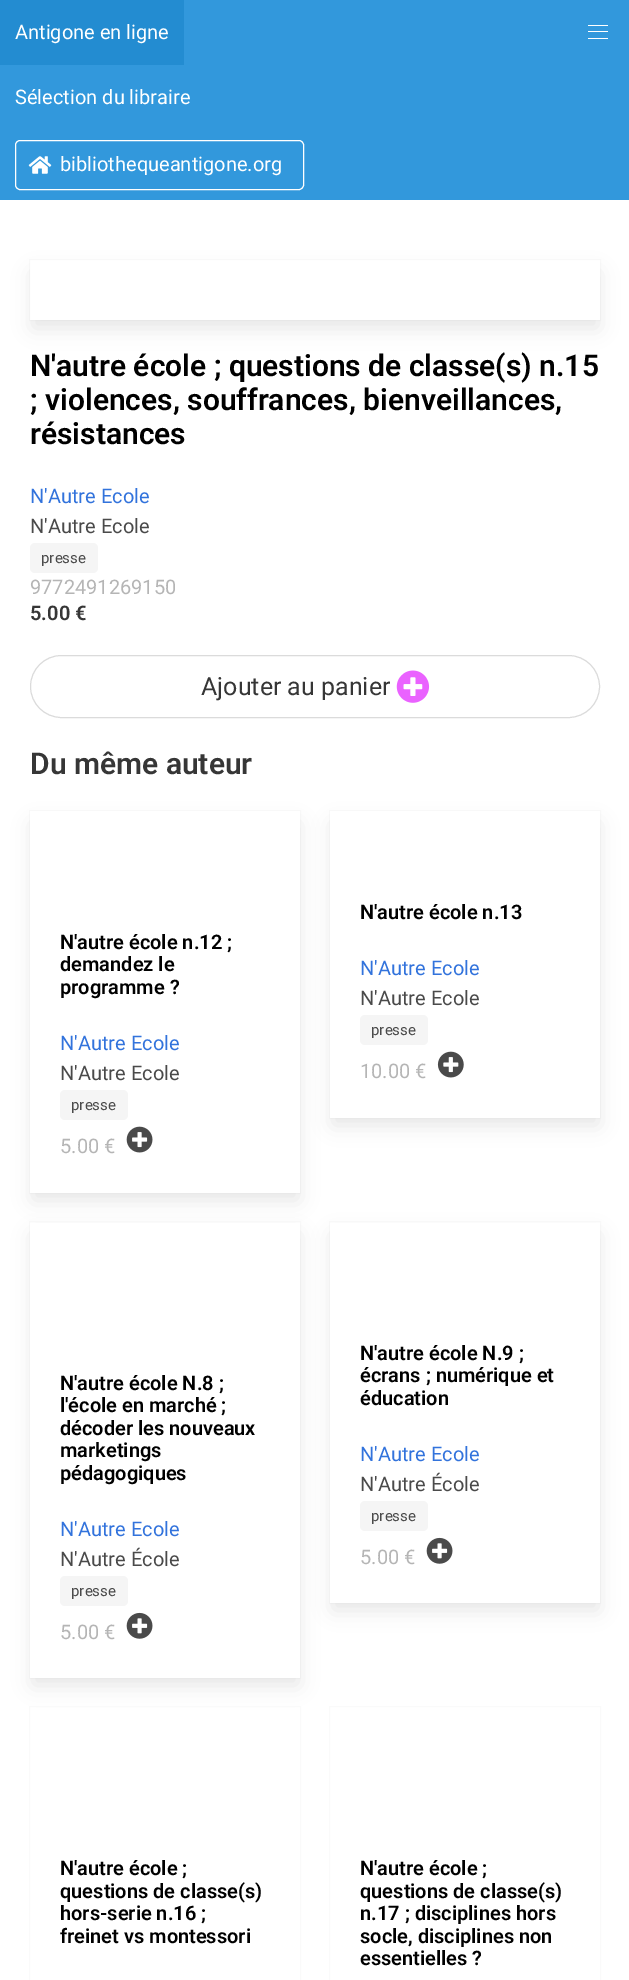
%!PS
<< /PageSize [629 1980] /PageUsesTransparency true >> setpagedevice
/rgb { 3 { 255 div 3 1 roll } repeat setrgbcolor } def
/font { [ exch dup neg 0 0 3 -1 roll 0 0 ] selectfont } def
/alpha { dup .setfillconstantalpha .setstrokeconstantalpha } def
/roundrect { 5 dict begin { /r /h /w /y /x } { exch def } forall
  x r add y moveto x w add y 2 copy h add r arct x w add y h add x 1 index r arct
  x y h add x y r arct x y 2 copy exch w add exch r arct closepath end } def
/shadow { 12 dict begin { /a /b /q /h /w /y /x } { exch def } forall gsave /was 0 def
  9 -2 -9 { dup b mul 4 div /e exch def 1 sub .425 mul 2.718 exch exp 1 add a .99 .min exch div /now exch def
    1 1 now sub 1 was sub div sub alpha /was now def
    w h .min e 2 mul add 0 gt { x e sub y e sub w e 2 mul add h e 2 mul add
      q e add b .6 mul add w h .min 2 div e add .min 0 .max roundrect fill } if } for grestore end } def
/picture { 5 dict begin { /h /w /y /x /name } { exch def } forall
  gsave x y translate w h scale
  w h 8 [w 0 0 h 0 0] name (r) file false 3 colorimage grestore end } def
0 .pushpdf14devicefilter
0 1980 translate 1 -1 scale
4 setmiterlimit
255 255 255 rgb
0 0 629 1980 rectfill
[
  [0 0 629 200 50 152 220]
  [0 0 184 65 35 140 209]
  [588 25 20 1 255 255 255]
  [588 31 20 1 255 255 255]
  [588 38 20 1 255 255 255]
] { aload pop rgb rectfill } forall
15.5 140.5 288 49 4.5 roundrect stroke
(img/1.rgb) 28 156 24 18 picture
250 250 250 rgb
29.5 259.5 571 61 rectstroke
gsave
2 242 moveto 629 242 lineto 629 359 lineto 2 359 lineto closepath 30 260 moveto 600 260 lineto 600 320 lineto 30 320 lineto closepath eoclip newpath
10 10 10 rgb
33 273 565 55 0 10 0.1 shadow
grestore
245 245 245 rgb
30 543 68 30 5 roundrect fill
219 219 219 rgb
30.5 655.5 569 62 31 roundrect stroke
(img/2.rgb) 396 670 34 33 picture
250 250 250 rgb
29.5 810.5 271 383 rectstroke
10 10 10 rgb
33 824 265 376 0 10 0.1 shadow
255 255 255 rgb
30 811 270 382 rectfill
245 245 245 rgb
60 1090 68 30 5 roundrect fill
(img/3.rgb) 126 1126 27 27 picture
250 250 250 rgb
329.5 810.5 271 308 rectstroke
10 10 10 rgb
333 824 265 301 0 10 0.1 shadow
255 255 255 rgb
330 811 270 307 rectfill
245 245 245 rgb
360 1015 68 30 5 roundrect fill
(img/4.rgb) 437 1051 27 27 picture
250 250 250 rgb
29.5 1221.5 271 457 rectstroke
10 10 10 rgb
33 1235 265 450 0 10 0.1 shadow
255 255 255 rgb
30 1223 270 455 rectfill
245 245 245 rgb
60 1576 68 30 5 roundrect fill
(img/5.rgb) 126 1612 27 27 picture
250 250 250 rgb
329.5 1221.5 271 382 rectstroke
10 10 10 rgb
333 1235 265 375 0 10 0.1 shadow
255 255 255 rgb
330 1223 270 380 rectfill
245 245 245 rgb
360 1501 68 30 5 roundrect fill
(img/5.rgb) 426 1537 27 27 picture
250 250 250 rgb
29.5 1706.5 271 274 rectstroke
329.5 1706.5 271 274 rectstroke
/Roboto-Regular 20 font
255 255 255 rgb
[
  [(Antigone en ligne) 15 39]
  [(Sélection du libraire) 15 104]
  [(bibliothequeantigone.org) 60 171]
] { aload pop moveto show } forall
/Roboto-SemiBold 30 font
0 0 0 rgb
[
  [(N'autre école ; questions de classe\(s\) n.15) 30 376]
  [(; violences, souffrances, bienveillances,) 30 410]
  [(résistances) 30 444]
] { aload pop moveto show } forall
/Roboto-Regular 20 font
50 115 220 rgb
30 503 moveto (N'Autre Ecole) show
74 74 74 rgb
30 533 moveto (N'Autre Ecole) show
/Roboto-Regular 15 font
41 563 moveto (presse) show
/Roboto-Regular 20 font
181 181 181 rgb
30 594 moveto (9772491269150) show
/Roboto-SemiBold 20 font
54 54 54 rgb
30 620 moveto (5.00 €) show
/Roboto-Regular 25 font
201 695 moveto (Ajouter au panier) show
/Roboto-SemiBold 30 font
30 774 moveto (Du même auteur) show
/Roboto-SemiBold 20 font
0 0 0 rgb
[
  [(N'autre école n.12 ;) 60 949]
  [(demandez le) 60 971]
  [(programme ?) 60 994]
] { aload pop moveto show } forall
/Roboto-Regular 20 font
50 115 220 rgb
60 1050 moveto (N'Autre Ecole) show
74 74 74 rgb
60 1080 moveto (N'Autre Ecole) show
/Roboto-Regular 15 font
71 1110 moveto (presse) show
/Roboto-Regular 20 font
181 181 181 rgb
60 1153 moveto (5.00 €) show
/Roboto-SemiBold 20 font
0 0 0 rgb
360 919 moveto (N'autre école n.13) show
/Roboto-Regular 20 font
50 115 220 rgb
360 975 moveto (N'Autre Ecole) show
74 74 74 rgb
360 1005 moveto (N'Autre Ecole) show
/Roboto-Regular 15 font
371 1035 moveto (presse) show
/Roboto-Regular 20 font
181 181 181 rgb
360 1078 moveto (10.00 €) show
/Roboto-SemiBold 20 font
0 0 0 rgb
[
  [(N'autre école N.8 ;) 60 1390]
  [(l'école en marché ;) 60 1412]
  [(décoder les nouveaux) 60 1435]
  [(marketings) 60 1457]
  [(pédagogiques) 60 1480]
] { aload pop moveto show } forall
/Roboto-Regular 20 font
50 115 220 rgb
60 1536 moveto (N'Autre Ecole) show
74 74 74 rgb
60 1566 moveto (N'Autre École) show
/Roboto-Regular 15 font
71 1596 moveto (presse) show
/Roboto-Regular 20 font
181 181 181 rgb
60 1639 moveto (5.00 €) show
/Roboto-SemiBold 20 font
0 0 0 rgb
[
  [(N'autre école N.9 ;) 360 1360]
  [(écrans ; numérique et) 360 1382]
  [(éducation) 360 1405]
] { aload pop moveto show } forall
/Roboto-Regular 20 font
50 115 220 rgb
360 1461 moveto (N'Autre Ecole) show
74 74 74 rgb
360 1491 moveto (N'Autre École) show
/Roboto-Regular 15 font
371 1521 moveto (presse) show
/Roboto-Regular 20 font
181 181 181 rgb
360 1564 moveto (5.00 €) show
/Roboto-SemiBold 20 font
0 0 0 rgb
[
  [(N'autre école ;) 60 1875]
  [(questions de classe\(s\)) 60 1898]
  [(hors-serie n.16 ;) 60 1920]
  [(freinet vs montessori) 60 1943]
  [(N'autre école ;) 360 1875]
  [(questions de classe\(s\)) 360 1898]
  [(n.17 ; disciplines hors) 360 1920]
  [(socle, disciplines non) 360 1943]
  [(essentielles ?) 360 1965]
] { aload pop moveto show } forall
.poppdf14devicefilter showpage
